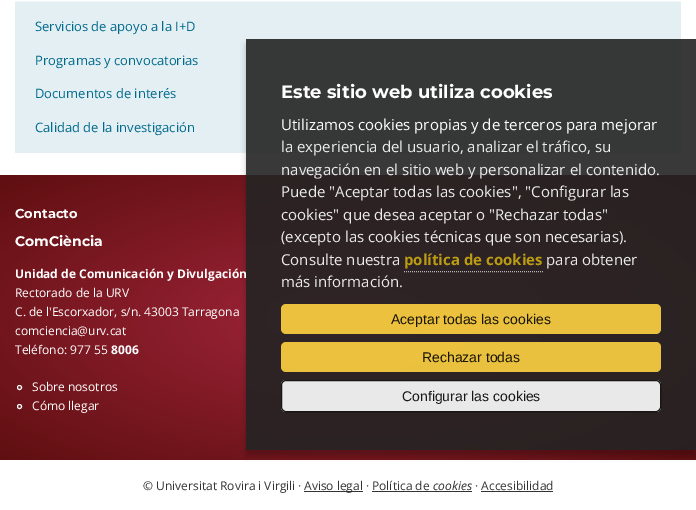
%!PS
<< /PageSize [696 510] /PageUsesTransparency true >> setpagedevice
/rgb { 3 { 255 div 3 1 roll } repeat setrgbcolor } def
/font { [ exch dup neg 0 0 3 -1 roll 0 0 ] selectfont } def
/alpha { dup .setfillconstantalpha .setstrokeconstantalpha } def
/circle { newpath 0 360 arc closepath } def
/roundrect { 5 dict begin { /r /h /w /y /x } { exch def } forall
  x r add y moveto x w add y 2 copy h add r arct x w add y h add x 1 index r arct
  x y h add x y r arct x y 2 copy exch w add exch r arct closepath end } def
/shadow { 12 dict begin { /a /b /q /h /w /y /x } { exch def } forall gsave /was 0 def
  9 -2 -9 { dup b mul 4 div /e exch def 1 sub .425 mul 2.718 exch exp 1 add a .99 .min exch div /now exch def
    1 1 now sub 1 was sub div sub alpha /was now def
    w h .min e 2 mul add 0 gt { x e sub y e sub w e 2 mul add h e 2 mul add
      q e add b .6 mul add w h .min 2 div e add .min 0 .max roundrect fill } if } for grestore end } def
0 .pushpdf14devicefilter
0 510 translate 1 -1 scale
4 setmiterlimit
255 255 255 rgb
0 0 696 510 rectfill
227 239 243 rgb
15 2 666 151 rectfill
241 247 249 rgb
15 1 666 1 rectfill
gsave 0 175 moveto 696 175 lineto 696 460 lineto 0 460 lineto closepath clip newpath 348 318 translate 492 202 scale
<< /ShadingType 3 /ColorSpace /DeviceRGB /Coords [0 0 0 0 0 1] /Extend [true true] /Function << /FunctionType 2 /Domain [0 1] /C0 [0.631 0.145 0.227] /C1 [0.373 0.059 0.067] /N 1 >> >> shfill grestore
gsave
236 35 moveto 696 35 lineto 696 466 lineto 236 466 lineto closepath 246 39 moveto 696 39 lineto 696 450 lineto 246 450 lineto closepath eoclip newpath
0 0 0 rgb
246 45 450 411 0 3 0.23 shadow
grestore
255 255 255 rgb
19.5 387.5 2 circle stroke
19.5 406.5 2 circle stroke
[
  [304 491 59 1 51 51 51]
  [372 491 100 1 51 51 51]
  [481 491 72 1 51 51 51]
] { aload pop rgb rectfill } forall
/OpenSans-Regular 13 font
0 105 140 rgb
[
  [(Servicios de apoyo a la I+D) 35 31]
  [(Programas y convocatorias) 35 65]
  [(Documentos de interés) 35 98]
  [(Calidad de la investigación) 35 132]
] { aload pop moveto show } forall
/Montserrat-Bold 13 font
255 255 255 rgb
15 218 moveto (Contacto) show
/Montserrat-Bold 14 font
15 246 moveto (ComCiència) show
/OpenSans-Bold 12 font
15 278 moveto (Unidad de Comunicación y Divulgación) show
0.9 alpha
35 35 35 rgb
246 39 450 411 rectfill
255 255 255 rgb
281 380 380 32 5 roundrect fill
0 0 0 rgb
281.5 380.5 379 31 4.5 roundrect stroke
/LiberationSans-Regular 14 font
1 alpha
23 23 23 rgb
402 401 moveto (Configurar las cookies) show
0.9 alpha
255 210 65 rgb
281 342 380 30 5 roundrect fill
1 alpha
23 19 6 rgb
422 362 moveto (Rechazar todas) show
0.9 alpha
255 210 65 rgb
281 304 380 30 5 roundrect fill
1 alpha
23 19 6 rgb
391 324 moveto (Aceptar todas las cookies) show
/OpenSans-Regular 15 font
235 235 235 rgb
281 287 moveto (más información.) show
546 265 moveto (para obtener) show
/OpenSans-Bold 15 font
187 156 19 rgb
404 265 moveto (política de cookies) show
187 183 184 rgb
[1 1] 0 setdash
404 271.5 moveto 543 271.5 lineto stroke
/OpenSans-Regular 15 font
235 235 235 rgb
[
  [(Consulte nuestra) 281 265]
  [(\(excepto las cookies técnicas que son necesarias\).) 281 242]
  [(cookies" que desea aceptar o "Rechazar todas") 281 220]
  [(Puede "Aceptar todas las cookies", "Configurar las) 281 197]
  [(navegación en el sitio web y personalizar el contenido.) 281 175]
  [(la experiencia del usuario, analizar el tráfico, su) 281 152]
] { aload pop moveto show } forall
255 255 255 rgb
281 130 moveto (Utilizamos cookies propias y de terceros para mejorar) show
/Montserrat-Bold 18 font
281 98 moveto (Este sitio web utiliza cookies) show
/OpenSans-Regular 12 font
[
  [(Rectorado de la URV) 15 297]
  [(C. de l'Escorxador, s/n. 43003 Tarragona) 15 316]
  [(comciencia@urv.cat) 15 335]
  [(Teléfono: 977 55) 15 354]
] { aload pop moveto show } forall
/OpenSans-Bold 12 font
111 354 moveto (8006) show
/OpenSans-Regular 12 font
32 391 moveto (Sobre nosotros) show
32 410 moveto (Cómo llegar) show
51 51 51 rgb
143 490 moveto (© Universitat Rovira i Virgili ·) show
304 490 moveto (Aviso legal · Política de) show
/OpenSans-Italic 12 font
433 490 moveto (cookies) show
/OpenSans-Regular 12 font
475 490 moveto (· Accesibilidad) show
.poppdf14devicefilter showpage
